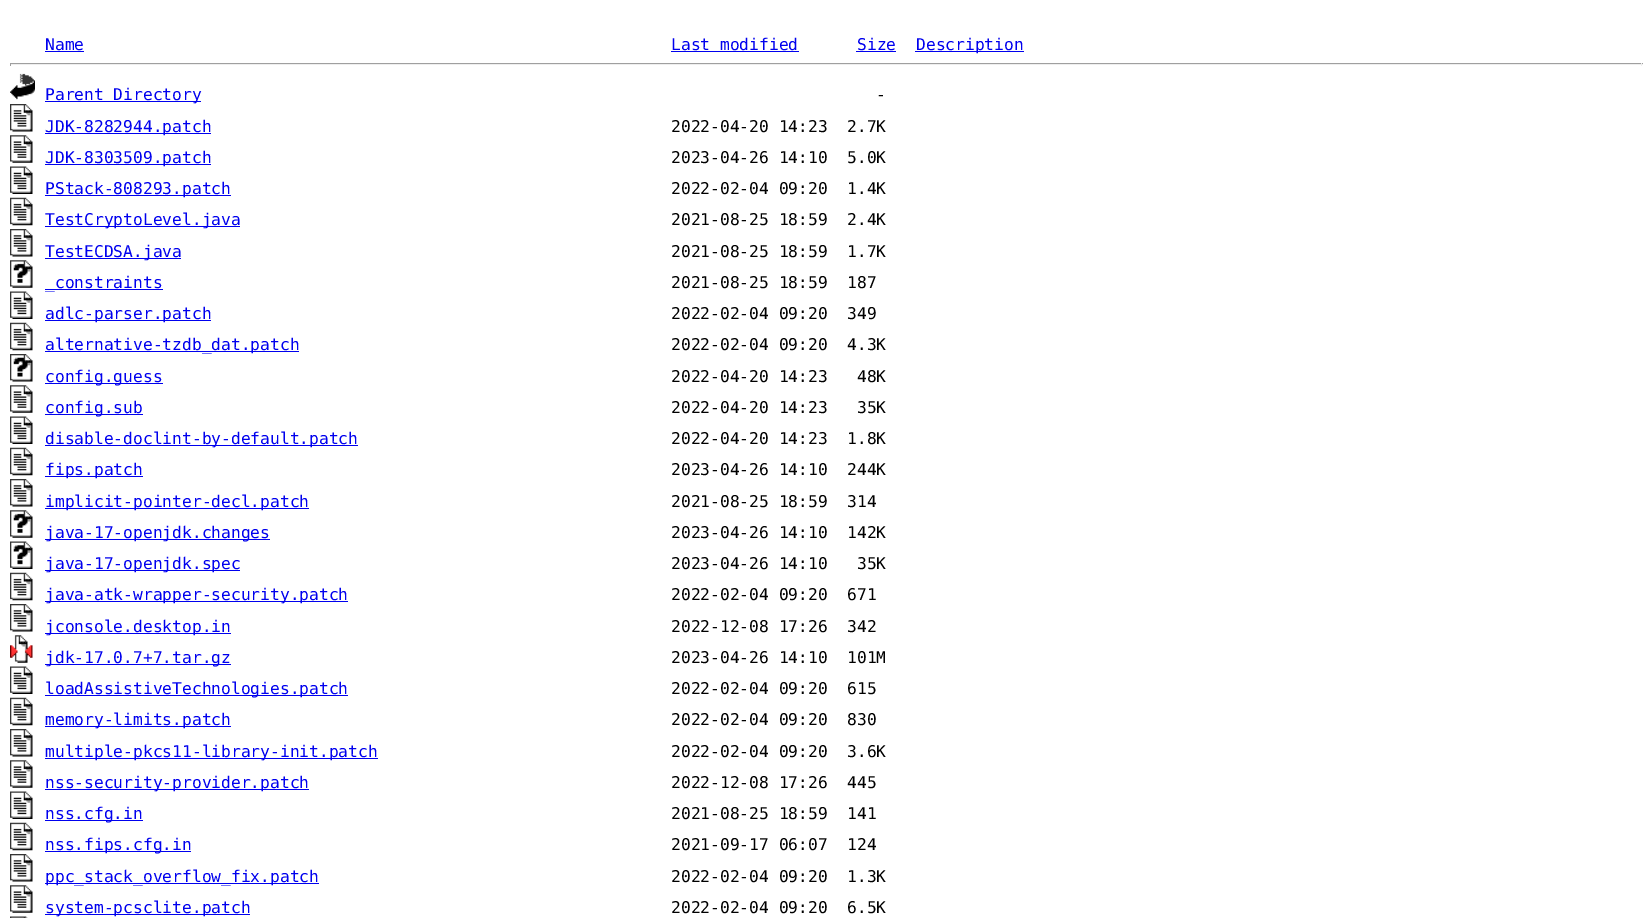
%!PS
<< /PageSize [1652 918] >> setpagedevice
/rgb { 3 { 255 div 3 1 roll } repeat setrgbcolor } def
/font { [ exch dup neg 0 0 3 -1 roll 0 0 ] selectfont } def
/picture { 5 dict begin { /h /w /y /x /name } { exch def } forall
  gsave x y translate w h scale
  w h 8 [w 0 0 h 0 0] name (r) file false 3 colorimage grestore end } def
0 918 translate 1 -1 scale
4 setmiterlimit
255 255 255 rgb
0 0 1652 918 rectfill
[
  [45 51 39 1 0 0 238]
  [671 51 128 1 0 0 238]
  [856 51 40 1 0 0 238]
  [915 51 109 1 0 0 238]
  [10 63 1633 1 159 159 159]
  [1641 63 1 3 238 238 238]
  [10 64 1633 1 238 238 238]
  [10 63 1 3 159 159 159]
] { aload pop rgb rectfill } forall
(img/1.rgb) 10 73 25 27 picture
0 0 238 rgb
45 101 156 1 rectfill
(img/2.rgb) 10 104 23 28 picture
45 133 166 1 rectfill
(img/3.rgb) 10 135 23 28 picture
45 164 166 1 rectfill
(img/4.rgb) 10 166 23 28 picture
45 195 186 1 rectfill
(img/5.rgb) 10 197 23 29 picture
45 226 195 1 rectfill
(img/2.rgb) 10 229 23 28 picture
45 258 136 1 rectfill
(img/6.rgb) 10 260 23 28 picture
45 289 118 1 rectfill
(img/4.rgb) 10 291 23 28 picture
45 320 166 1 rectfill
(img/5.rgb) 10 322 23 29 picture
45 351 254 1 rectfill
(img/7.rgb) 10 354 23 28 picture
45 383 118 1 rectfill
(img/3.rgb) 10 385 23 28 picture
45 414 98 1 rectfill
(img/8.rgb) 10 416 23 28 picture
45 445 313 1 rectfill
(img/5.rgb) 10 447 23 29 picture
45 476 98 1 rectfill
(img/2.rgb) 10 479 23 28 picture
45 508 264 1 rectfill
(img/6.rgb) 10 510 23 28 picture
45 539 225 1 rectfill
(img/9.rgb) 10 541 23 28 picture
45 570 195 1 rectfill
(img/5.rgb) 10 572 23 29 picture
45 601 303 1 rectfill
(img/2.rgb) 10 604 23 28 picture
45 633 186 1 rectfill
(img/10.rgb) 10 635 23 28 picture
45 664 186 1 rectfill
(img/4.rgb) 10 666 23 28 picture
45 695 303 1 rectfill
(img/5.rgb) 10 697 23 29 picture
45 726 186 1 rectfill
(img/2.rgb) 10 729 23 28 picture
45 758 333 1 rectfill
(img/3.rgb) 10 760 23 28 picture
45 789 264 1 rectfill
(img/4.rgb) 10 791 23 28 picture
45 820 98 1 rectfill
(img/5.rgb) 10 822 23 29 picture
45 851 146 1 rectfill
(img/2.rgb) 10 854 23 28 picture
45 883 274 1 rectfill
(img/3.rgb) 10 885 23 28 picture
45 914 205 1 rectfill
(img/11.rgb) 10 916 18 2 picture
/DejaVuSansMono-Regular 16.25 font
[
  [(Name) 45 50]
  [(Last modified) 671 50]
  [(Size) 857 50]
  [(Description) 916 50]
  [(Parent Directory) 45 100]
] { aload pop moveto show } forall
0 0 0 rgb
876 100 moveto (-) show
0 0 238 rgb
45 132 moveto (JDK-8282944.patch) show
0 0 0 rgb
671 132 moveto (2022-04-20 14:23  2.7K) show
0 0 238 rgb
45 163 moveto (JDK-8303509.patch) show
0 0 0 rgb
671 163 moveto (2023-04-26 14:10  5.0K) show
0 0 238 rgb
45 194 moveto (PStack-808293.patch) show
0 0 0 rgb
671 194 moveto (2022-02-04 09:20  1.4K) show
0 0 238 rgb
45 225 moveto (TestCryptoLevel.java) show
0 0 0 rgb
671 225 moveto (2021-08-25 18:59  2.4K) show
0 0 238 rgb
45 257 moveto (TestECDSA.java) show
0 0 0 rgb
671 257 moveto (2021-08-25 18:59  1.7K) show
0 0 238 rgb
45 288 moveto (_constraints) show
0 0 0 rgb
671 288 moveto (2021-08-25 18:59  187) show
0 0 238 rgb
45 319 moveto (adlc-parser.patch) show
0 0 0 rgb
671 319 moveto (2022-02-04 09:20  349) show
0 0 238 rgb
45 350 moveto (alternative-tzdb_dat.patch) show
0 0 0 rgb
671 350 moveto (2022-02-04 09:20  4.3K) show
0 0 238 rgb
45 382 moveto (config.guess) show
0 0 0 rgb
671 382 moveto (2022-04-20 14:23   48K) show
0 0 238 rgb
45 413 moveto (config.sub) show
0 0 0 rgb
671 413 moveto (2022-04-20 14:23   35K) show
0 0 238 rgb
45 444 moveto (disable-doclint-by-default.patch) show
0 0 0 rgb
671 444 moveto (2022-04-20 14:23  1.8K) show
0 0 238 rgb
45 475 moveto (fips.patch) show
0 0 0 rgb
671 475 moveto (2023-04-26 14:10  244K) show
0 0 238 rgb
45 507 moveto (implicit-pointer-decl.patch) show
0 0 0 rgb
671 507 moveto (2021-08-25 18:59  314) show
0 0 238 rgb
45 538 moveto (java-17-openjdk.changes) show
0 0 0 rgb
671 538 moveto (2023-04-26 14:10  142K) show
0 0 238 rgb
45 569 moveto (java-17-openjdk.spec) show
0 0 0 rgb
671 569 moveto (2023-04-26 14:10   35K) show
0 0 238 rgb
45 600 moveto (java-atk-wrapper-security.patch) show
0 0 0 rgb
671 600 moveto (2022-02-04 09:20  671) show
0 0 238 rgb
45 632 moveto (jconsole.desktop.in) show
0 0 0 rgb
671 632 moveto (2022-12-08 17:26  342) show
0 0 238 rgb
45 663 moveto (jdk-17.0.7+7.tar.gz) show
0 0 0 rgb
671 663 moveto (2023-04-26 14:10  101M) show
0 0 238 rgb
45 694 moveto (loadAssistiveTechnologies.patch) show
0 0 0 rgb
671 694 moveto (2022-02-04 09:20  615) show
0 0 238 rgb
45 725 moveto (memory-limits.patch) show
0 0 0 rgb
671 725 moveto (2022-02-04 09:20  830) show
0 0 238 rgb
45 757 moveto (multiple-pkcs11-library-init.patch) show
0 0 0 rgb
671 757 moveto (2022-02-04 09:20  3.6K) show
0 0 238 rgb
45 788 moveto (nss-security-provider.patch) show
0 0 0 rgb
671 788 moveto (2022-12-08 17:26  445) show
0 0 238 rgb
45 819 moveto (nss.cfg.in) show
0 0 0 rgb
671 819 moveto (2021-08-25 18:59  141) show
0 0 238 rgb
45 850 moveto (nss.fips.cfg.in) show
0 0 0 rgb
671 850 moveto (2021-09-17 06:07  124) show
0 0 238 rgb
45 882 moveto (ppc_stack_overflow_fix.patch) show
0 0 0 rgb
671 882 moveto (2022-02-04 09:20  1.3K) show
0 0 238 rgb
45 913 moveto (system-pcsclite.patch) show
0 0 0 rgb
671 913 moveto (2022-02-04 09:20  6.5K) show
showpage
